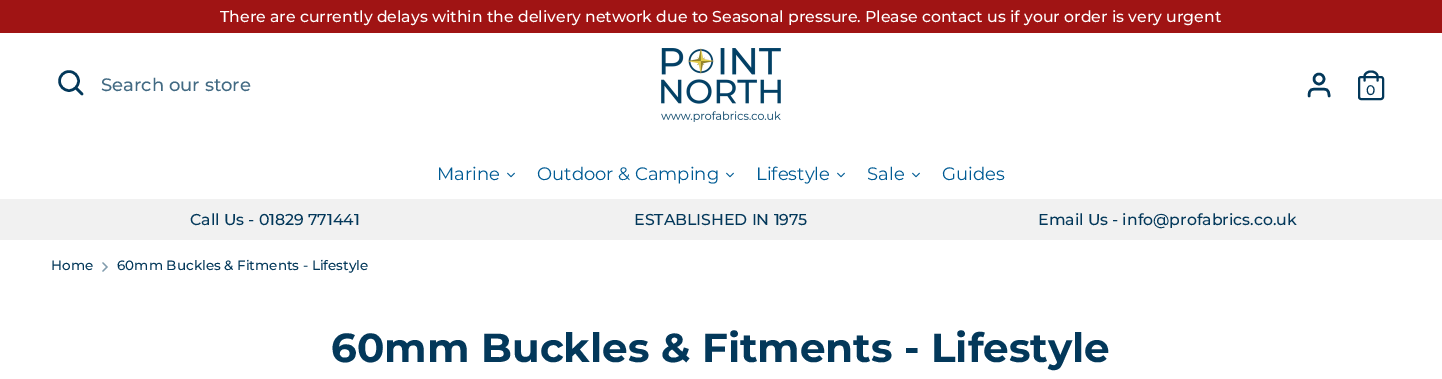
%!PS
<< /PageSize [1442 379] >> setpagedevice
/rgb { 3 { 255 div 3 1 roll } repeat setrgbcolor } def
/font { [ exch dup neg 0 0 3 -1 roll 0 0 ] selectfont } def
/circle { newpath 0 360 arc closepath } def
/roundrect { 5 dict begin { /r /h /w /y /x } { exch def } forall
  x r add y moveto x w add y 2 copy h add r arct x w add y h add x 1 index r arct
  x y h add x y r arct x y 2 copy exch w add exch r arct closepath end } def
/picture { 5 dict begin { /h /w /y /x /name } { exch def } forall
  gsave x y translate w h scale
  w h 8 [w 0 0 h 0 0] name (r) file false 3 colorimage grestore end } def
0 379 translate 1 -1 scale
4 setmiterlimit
255 255 255 rgb
0 0 1442 379 rectfill
160 20 20 rgb
0 0 1442 33 rectfill
3 56 90 rgb
2.5 setlinewidth
69 81 9.5 circle stroke
1 setlinecap
82 94 moveto 76 88 lineto stroke
(img/1.rgb) 661 48 120 74 picture
1329 96 moveto 1329 88.5 1326 89 1319 89 curveto 1312 89 1309 88.5 1309 96 curveto stroke
0 setlinecap
1319 79 5 circle stroke
2 setlinewidth
1359 77 24 22 2 roundrect stroke
2.1 setlinewidth
1 setlinecap
1364.5 80.5 moveto 1364.5 76.5 lineto 1364.5 73.5 1367.5 71.5 1371 71.5 curveto 1374.5 71.5 1377.5 73.5 1377.5 76.5 curveto 1377.5 80.5 lineto stroke
(img/2.rgb) 507 172 8 6 picture
(img/2.rgb) 726 172 8 6 picture
(img/2.rgb) 837 172 8 6 picture
(img/2.rgb) 912 172 8 6 picture
241 241 241 rgb
0 199 1442 41 rectfill
129 156 173 rgb
1.3 setlinewidth
103 271 moveto 107 267 lineto 103 263 lineto stroke
/Montserrat-Medium 15.75 font
255 255 255 rgb
220 22 moveto (There are currently delays within the delivery network due to Seasonal pressure. Please contact us if your order is very urgent) show
/Montserrat-Medium 18 font
66 106 131 rgb
101 91 moveto (Search our store) show
/Montserrat-Medium 14 font
3 56 90 rgb
1366 95 moveto (0) show
/Montserrat-Regular 18 font
0 91 148 rgb
[
  [(Marine) 437 180]
  [(Outdoor & Camping) 537 180]
  [(Lifestyle) 756 180]
  [(Sale) 867 180]
  [(Guides) 942 180]
] { aload pop moveto show } forall
/Montserrat-Medium 15.75 font
3 56 90 rgb
[
  [(Call Us - 01829 771441) 190 225]
  [(ESTABLISHED IN 1975) 634 225]
  [(Email Us - info@profabrics.co.uk) 1038 225]
] { aload pop moveto show } forall
/Montserrat-Medium 13.5 font
51 270 moveto (Home) show
117 270 moveto (60mm Buckles & Fitments - Lifestyle) show
/Montserrat-Bold 40.5 font
331 362 moveto (60mm Buckles & Fitments - Lifestyle) show
showpage
